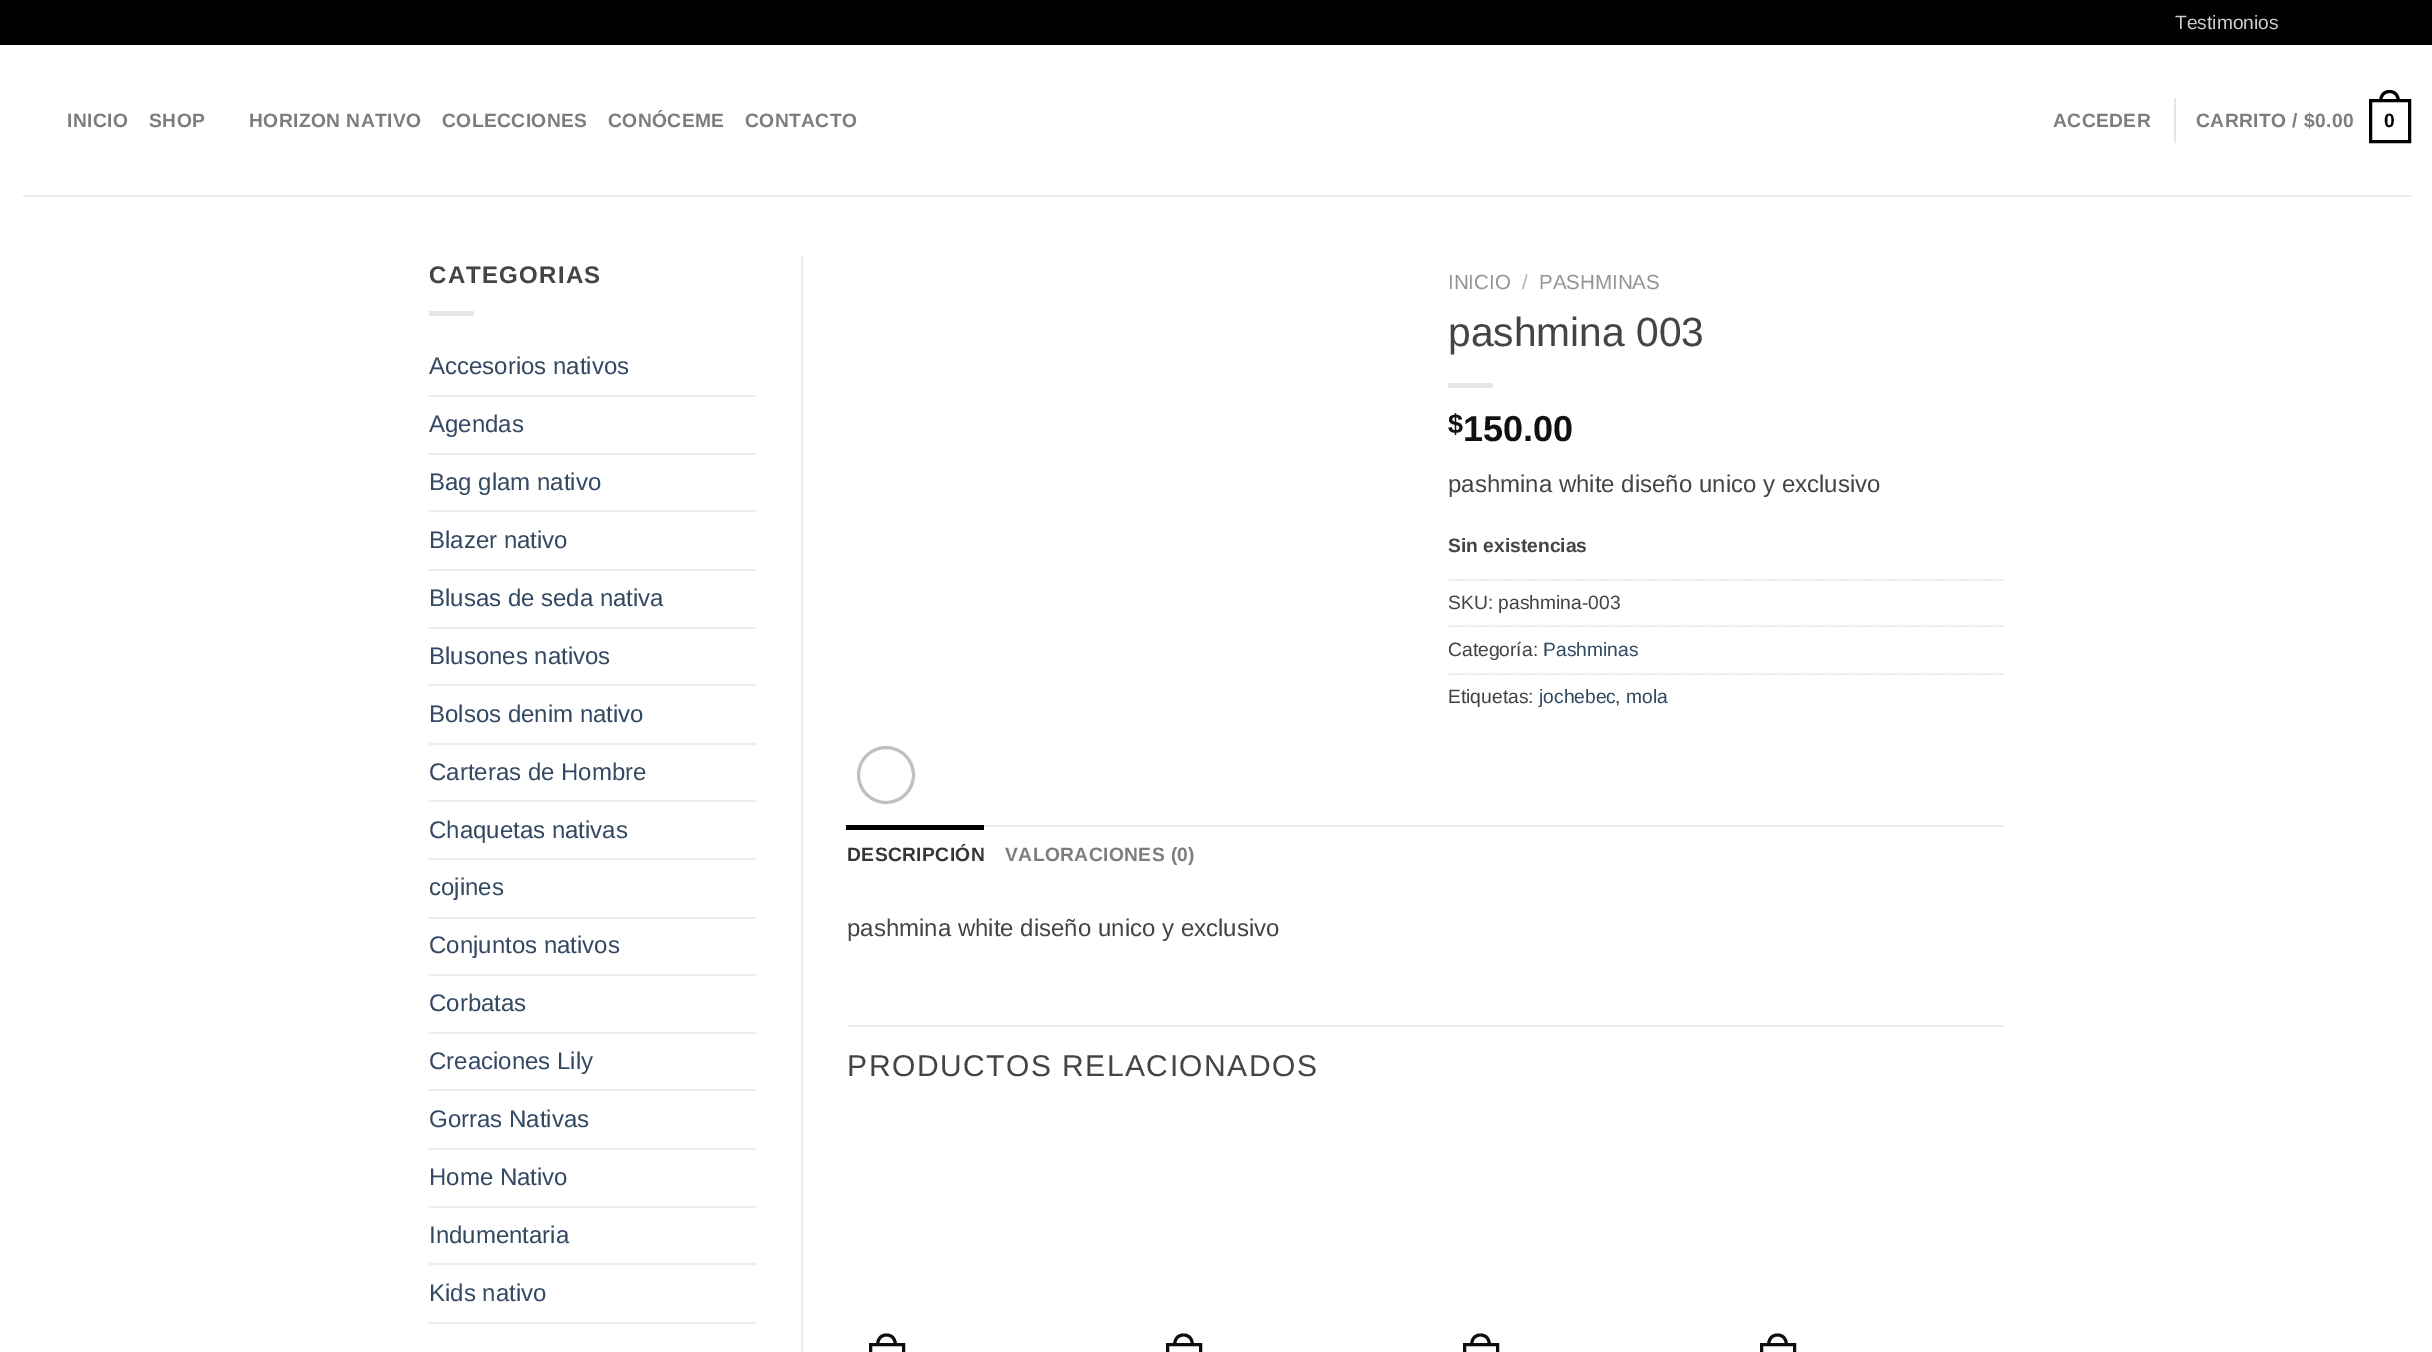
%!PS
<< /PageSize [2432 1352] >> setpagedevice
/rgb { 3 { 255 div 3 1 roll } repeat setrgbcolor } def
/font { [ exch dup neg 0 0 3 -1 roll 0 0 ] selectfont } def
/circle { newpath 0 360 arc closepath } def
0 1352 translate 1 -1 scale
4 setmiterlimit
255 255 255 rgb
0 0 2432 1352 rectfill
0 0 0 rgb
0 0 2432 45 rectfill
230 230 230 rgb
2174 98 2 45 rectfill
0 0 0 rgb
3 setlinewidth
2370.5 100.5 39 41 rectstroke
2389.5 90 moveto 2396.5 90 2400 95.5 2400 102 curveto 2379 102 lineto 2379 95.5 2382.5 90 2389.5 90 curveto closepath 2389.5 93 moveto 2395 93 2397 97.5 2397 102 curveto 2382 102 lineto 2382 97.5 2384 93 2389.5 93 curveto closepath eofill
[
  [23 195 2388 2 236 236 236]
  [429 311 45 5 230 230 230]
  [429 395 327 2 236 236 236]
  [429 453 327 2 236 236 236]
  [429 510 327 2 236 236 236]
  [429 569 327 2 236 236 236]
  [429 627 327 2 236 236 236]
  [429 684 327 2 236 236 236]
  [429 743 327 2 236 236 236]
  [429 800 327 2 236 236 236]
  [429 858 327 2 236 236 236]
  [429 917 327 2 236 236 236]
  [429 974 327 2 236 236 236]
  [429 1032 327 2 236 236 236]
  [429 1089 327 2 236 236 236]
  [429 1148 327 2 236 236 236]
  [429 1206 327 2 236 236 236]
  [429 1263 327 2 236 236 236]
  [429 1322 327 2 236 236 236]
  [801 255 2 1097 236 236 236]
  [1448 383 45 5 230 230 230]
] { aload pop rgb rectfill } forall
221 221 221 rgb
1.5 setlinewidth
[1.5 1.5] 0 setdash
1447.5 580 moveto 2004 580 lineto stroke
1447.5 626 moveto 2004 626 lineto stroke
1447.5 674 moveto 2004 674 lineto stroke
192 192 192 rgb
3 setlinewidth
[] 0 setdash
886 775 27.5 circle stroke
[
  [984 825 1020 2 236 236 236]
  [846 825 138 5 0 0 0]
  [848 1025 1156 2 236 236 236]
] { aload pop rgb rectfill } forall
13 13 13 rgb
870.5 1344.5 33 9 rectstroke
886.5 1333.5 moveto 893.5 1333.5 897 1339 897 1345.5 curveto 876 1345.5 lineto 876 1339 879.5 1333.5 886.5 1333.5 curveto closepath 886.5 1336.5 moveto 892 1336.5 894 1341 894 1345.5 curveto 879 1345.5 lineto 879 1341 881 1336.5 886.5 1336.5 curveto closepath eofill
1167.5 1344.5 33 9 rectstroke
1183.5 1333.5 moveto 1190.5 1333.5 1194 1339 1194 1345.5 curveto 1173 1345.5 lineto 1173 1339 1176.5 1333.5 1183.5 1333.5 curveto closepath 1183.5 1336.5 moveto 1189 1336.5 1191 1341 1191 1345.5 curveto 1176 1345.5 lineto 1176 1341 1178 1336.5 1183.5 1336.5 curveto closepath eofill
1464.5 1344.5 33 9 rectstroke
1480.5 1333.5 moveto 1487.5 1333.5 1491 1339 1491 1345.5 curveto 1470 1345.5 lineto 1470 1339 1473.5 1333.5 1480.5 1333.5 curveto closepath 1480.5 1336.5 moveto 1486 1336.5 1488 1341 1488 1345.5 curveto 1473 1345.5 lineto 1473 1341 1475 1336.5 1480.5 1336.5 curveto closepath eofill
1761.5 1344.5 33 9 rectstroke
1777.5 1333.5 moveto 1784.5 1333.5 1788 1339 1788 1345.5 curveto 1767 1345.5 lineto 1767 1339 1770.5 1333.5 1777.5 1333.5 curveto closepath 1777.5 1336.5 moveto 1783 1336.5 1785 1341 1785 1345.5 curveto 1770 1345.5 lineto 1770 1341 1772 1336.5 1777.5 1336.5 curveto closepath eofill
/LiberationSans-Regular 19.25 font
204 204 204 rgb
2175 29 moveto (Testimonios) show
/LiberationSans-Bold 19.25 font
125 125 125 rgb
67 127 moveto 0.4 0 (INICIO) ashow
149 127 moveto 0.4 0 (SHOP) ashow
249 127 moveto 0.4 0 (HORIZON NATIVO) ashow
442 127 moveto 0.4 0 (COLECCIONES) ashow
608 127 moveto 0.4 0 (CONÓCEME) ashow
745 127 moveto 0.4 0 (CONTACTO) ashow
2053 127 moveto 0.4 0 (ACCEDER) ashow
2196 127 moveto 0.4 0 (CARRITO / $0.00) ashow
0 0 0 rgb
2384 127 moveto 0.4 0 (0) ashow
/LiberationSans-Bold 24 font
68 68 68 rgb
429 283 moveto 1.25 0 (CATEGORIAS) ashow
/LiberationSans-Regular 24 font
51 72 98 rgb
[
  [(Accesorios nativos) 429 374]
  [(Agendas) 429 432]
  [(Bag glam nativo) 429 490]
  [(Blazer nativo) 429 548]
  [(Blusas de seda nativa) 429 606]
  [(Blusones nativos) 429 664]
  [(Bolsos denim nativo) 429 722]
  [(Carteras de Hombre) 429 780]
  [(Chaquetas nativas) 429 838]
  [(cojines) 429 895]
  [(Conjuntos nativos) 429 953]
  [(Corbatas) 429 1011]
  [(Creaciones Lily) 429 1069]
  [(Gorras Nativas) 429 1127]
  [(Home Nativo) 429 1185]
  [(Indumentaria) 429 1243]
  [(Kids nativo) 429 1301]
] { aload pop moveto show } forall
/LiberationSans-Regular 20.5 font
148 148 148 rgb
1448 289 moveto (INICIO) show
178 178 178 rgb
1522 289 moveto (/) show
148 148 148 rgb
1539 289 moveto (PASHMINAS) show
/LiberationSans-Regular 40.75 font
68 68 68 rgb
1448 346 moveto (pashmina 003) show
/LiberationSans-Bold 27 font
17 17 17 rgb
1448 433 moveto ($) show
/LiberationSans-Bold 36 font
1463 441 moveto (150.00) show
/LiberationSans-Regular 24 font
68 68 68 rgb
1448 492 moveto (pashmina white diseño unico y exclusivo) show
/LiberationSans-Bold 19.25 font
1448 552 moveto (Sin existencias) show
/LiberationSans-Regular 19.25 font
1448 609 moveto (SKU: pashmina-003) show
1448 656 moveto (Categoría:) show
51 72 98 rgb
1543 656 moveto (Pashminas) show
68 68 68 rgb
1448 703 moveto (Etiquetas:) show
51 72 98 rgb
1539 703 moveto (jochebec) show
68 68 68 rgb
1615 703 moveto (,) show
51 72 98 rgb
1626 703 moveto (mola) show
/LiberationSans-Bold 19.25 font
54 54 54 rgb
847 861 moveto 0.4 0 (DESCRIPCIÓN) ashow
125 125 125 rgb
1005 861 moveto 0.4 0 (VALORACIONES \(0\)) ashow
/LiberationSans-Regular 24 font
68 68 68 rgb
847 936 moveto (pashmina white diseño unico y exclusivo) show
/LiberationSans-Regular 30 font
847 1076 moveto 1.5 0 (PRODUCTOS RELACIONADOS) ashow
showpage
